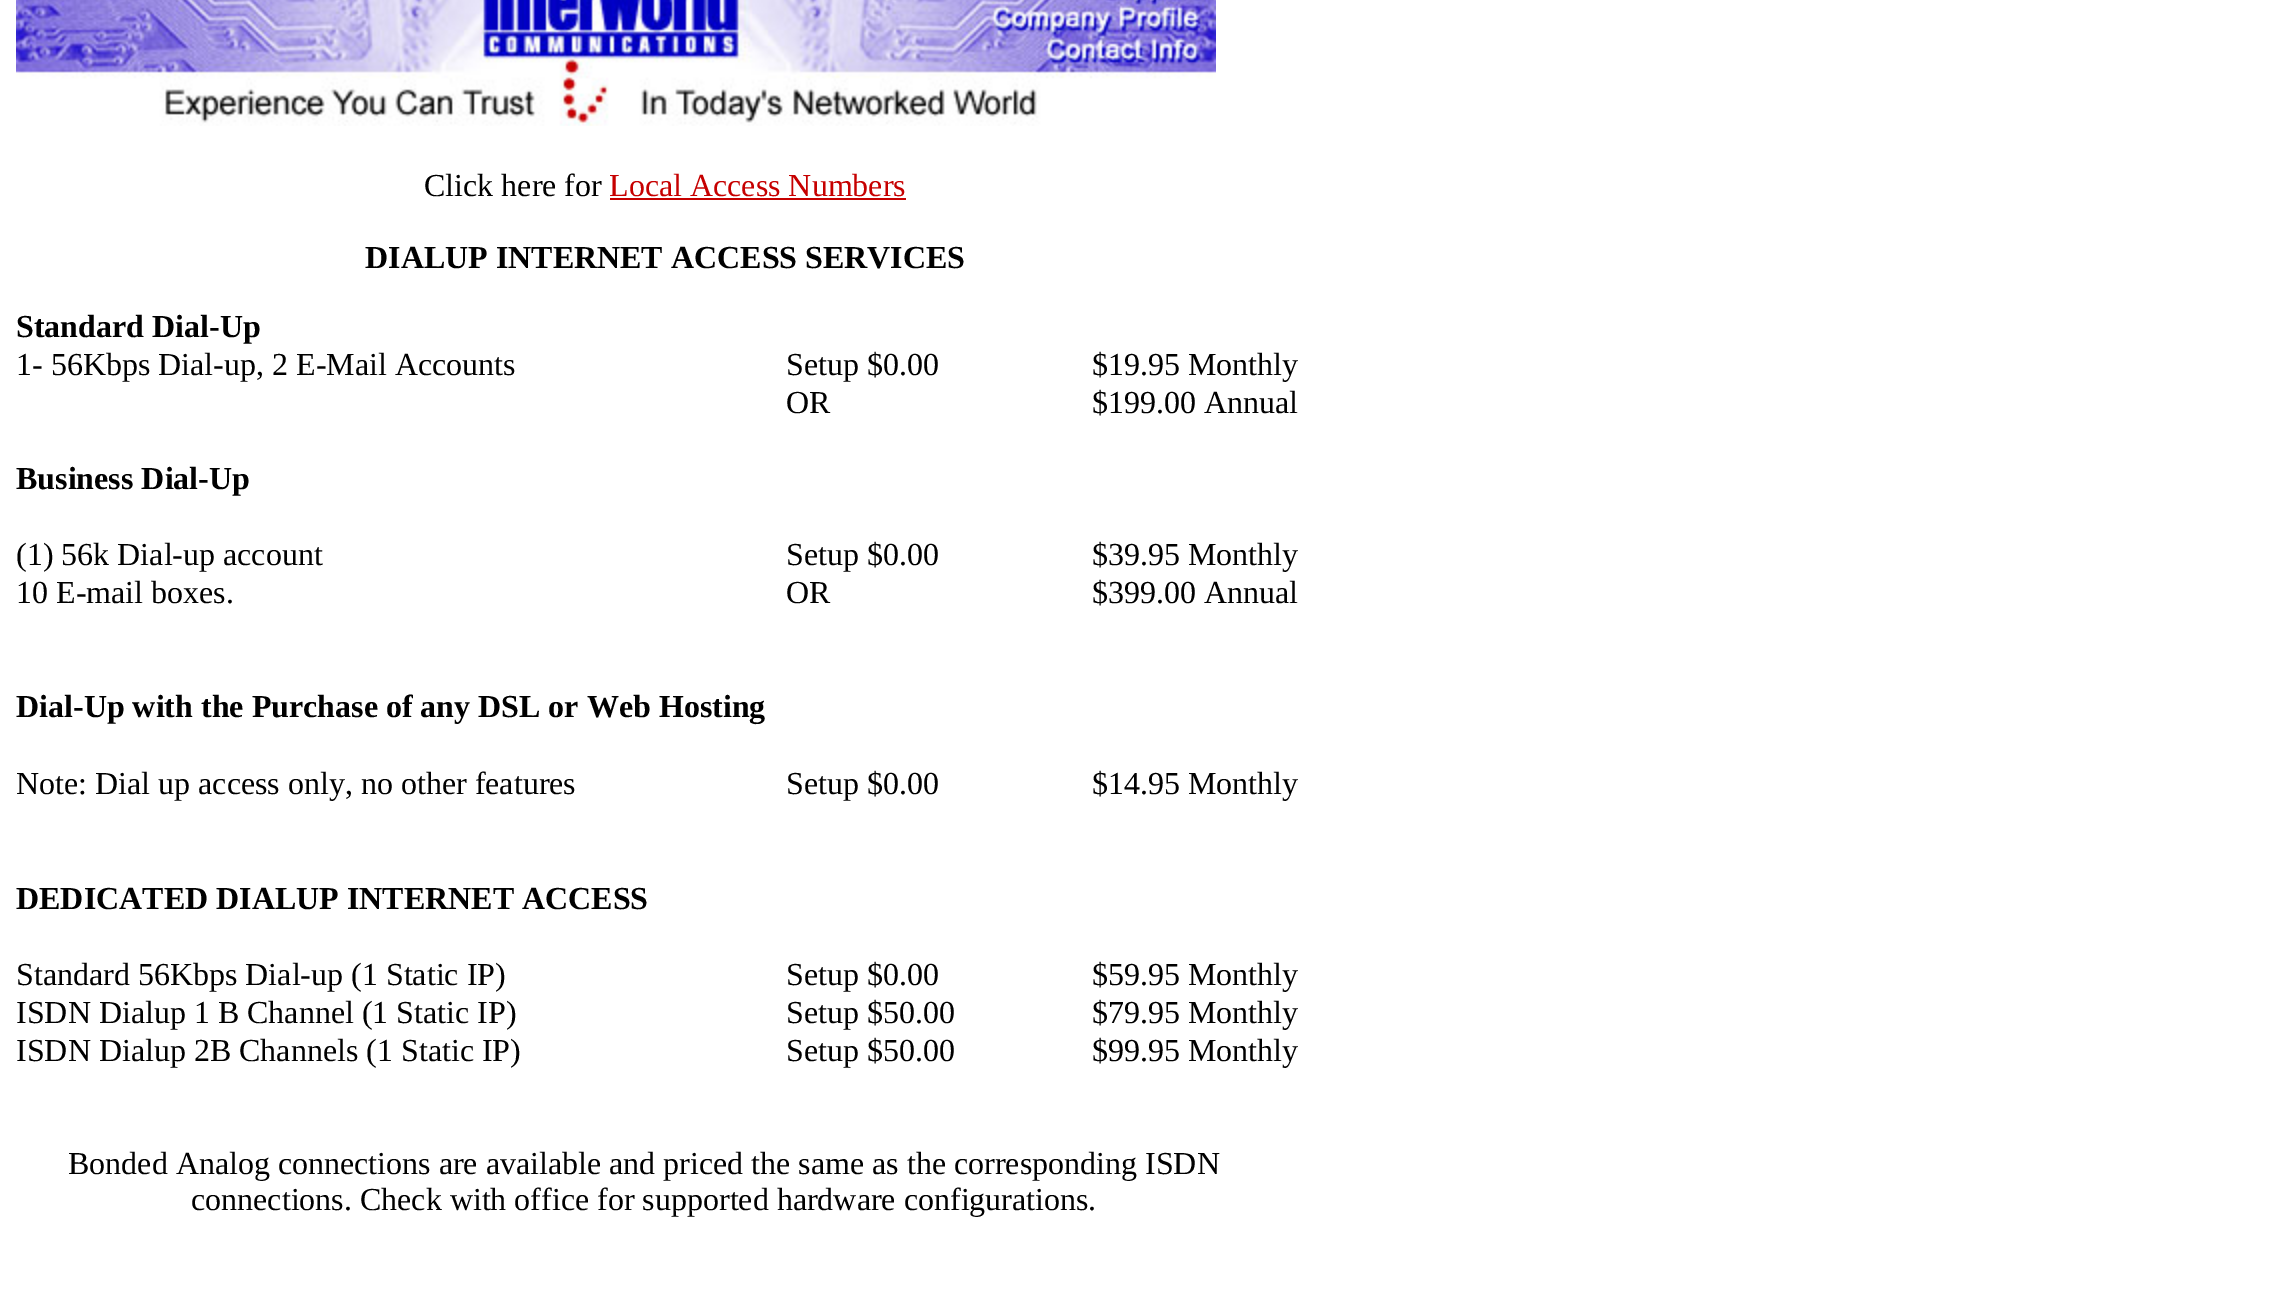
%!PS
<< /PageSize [2288 1313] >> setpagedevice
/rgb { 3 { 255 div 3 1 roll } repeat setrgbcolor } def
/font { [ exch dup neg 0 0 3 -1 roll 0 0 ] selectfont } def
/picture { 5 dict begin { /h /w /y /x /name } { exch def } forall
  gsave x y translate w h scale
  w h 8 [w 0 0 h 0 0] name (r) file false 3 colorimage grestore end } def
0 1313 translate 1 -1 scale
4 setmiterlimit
255 255 255 rgb
0 0 2288 1313 rectfill
(img/1.rgb) 16 0 1200 126 picture
198 0 0 rgb
610 198 296 2 rectfill
/LiberationSerif-Regular 32 font
0 0 0 rgb
424 196 moveto (Click here for) show
198 0 0 rgb
609 196 moveto (Local Access Numbers) show
/LiberationSerif-Bold 32 font
0 0 0 rgb
365 268 moveto (DIALUP INTERNET ACCESS SERVICES) show
16 337 moveto (Standard Dial-Up) show
/LiberationSerif-Regular 32 font
[
  [(1- 56Kbps Dial-up, 2 E-Mail Accounts) 16 375]
  [(Setup $0.00) 786 375]
  [($19.95 Monthly) 1092 375]
  [(OR) 786 413]
  [($199.00 Annual) 1092 413]
] { aload pop moveto show } forall
/LiberationSerif-Bold 32 font
16 489 moveto (Business Dial-Up) show
/LiberationSerif-Regular 32 font
[
  [(\(1\) 56k Dial-up account) 16 565]
  [(Setup $0.00) 786 565]
  [($39.95 Monthly) 1092 565]
  [(10 E-mail boxes.) 16 603]
  [(OR) 786 603]
  [($399.00 Annual) 1092 603]
] { aload pop moveto show } forall
/LiberationSerif-Bold 32 font
16 717 moveto (Dial-Up with the Purchase of any DSL or Web Hosting) show
/LiberationSerif-Regular 32 font
[
  [(Note: Dial up access only, no other features) 16 794]
  [(Setup $0.00) 786 794]
  [($14.95 Monthly) 1092 794]
] { aload pop moveto show } forall
/LiberationSerif-Bold 32 font
16 909 moveto (DEDICATED DIALUP INTERNET ACCESS) show
/LiberationSerif-Regular 32 font
[
  [(Standard 56Kbps Dial-up \(1 Static IP\)) 16 985]
  [(Setup $0.00) 786 985]
  [($59.95 Monthly) 1092 985]
  [(ISDN Dialup 1 B Channel \(1 Static IP\)) 16 1023]
  [(Setup $50.00) 786 1023]
  [($79.95 Monthly) 1092 1023]
  [(ISDN Dialup 2B Channels \(1 Static IP\)) 16 1061]
  [(Setup $50.00) 786 1061]
  [($99.95 Monthly) 1092 1061]
  [(Bonded Analog connections are available and priced the same as the corresponding ISDN) 68 1174]
  [(connections. Check with office for supported hardware configurations.) 191 1210]
] { aload pop moveto show } forall
showpage
